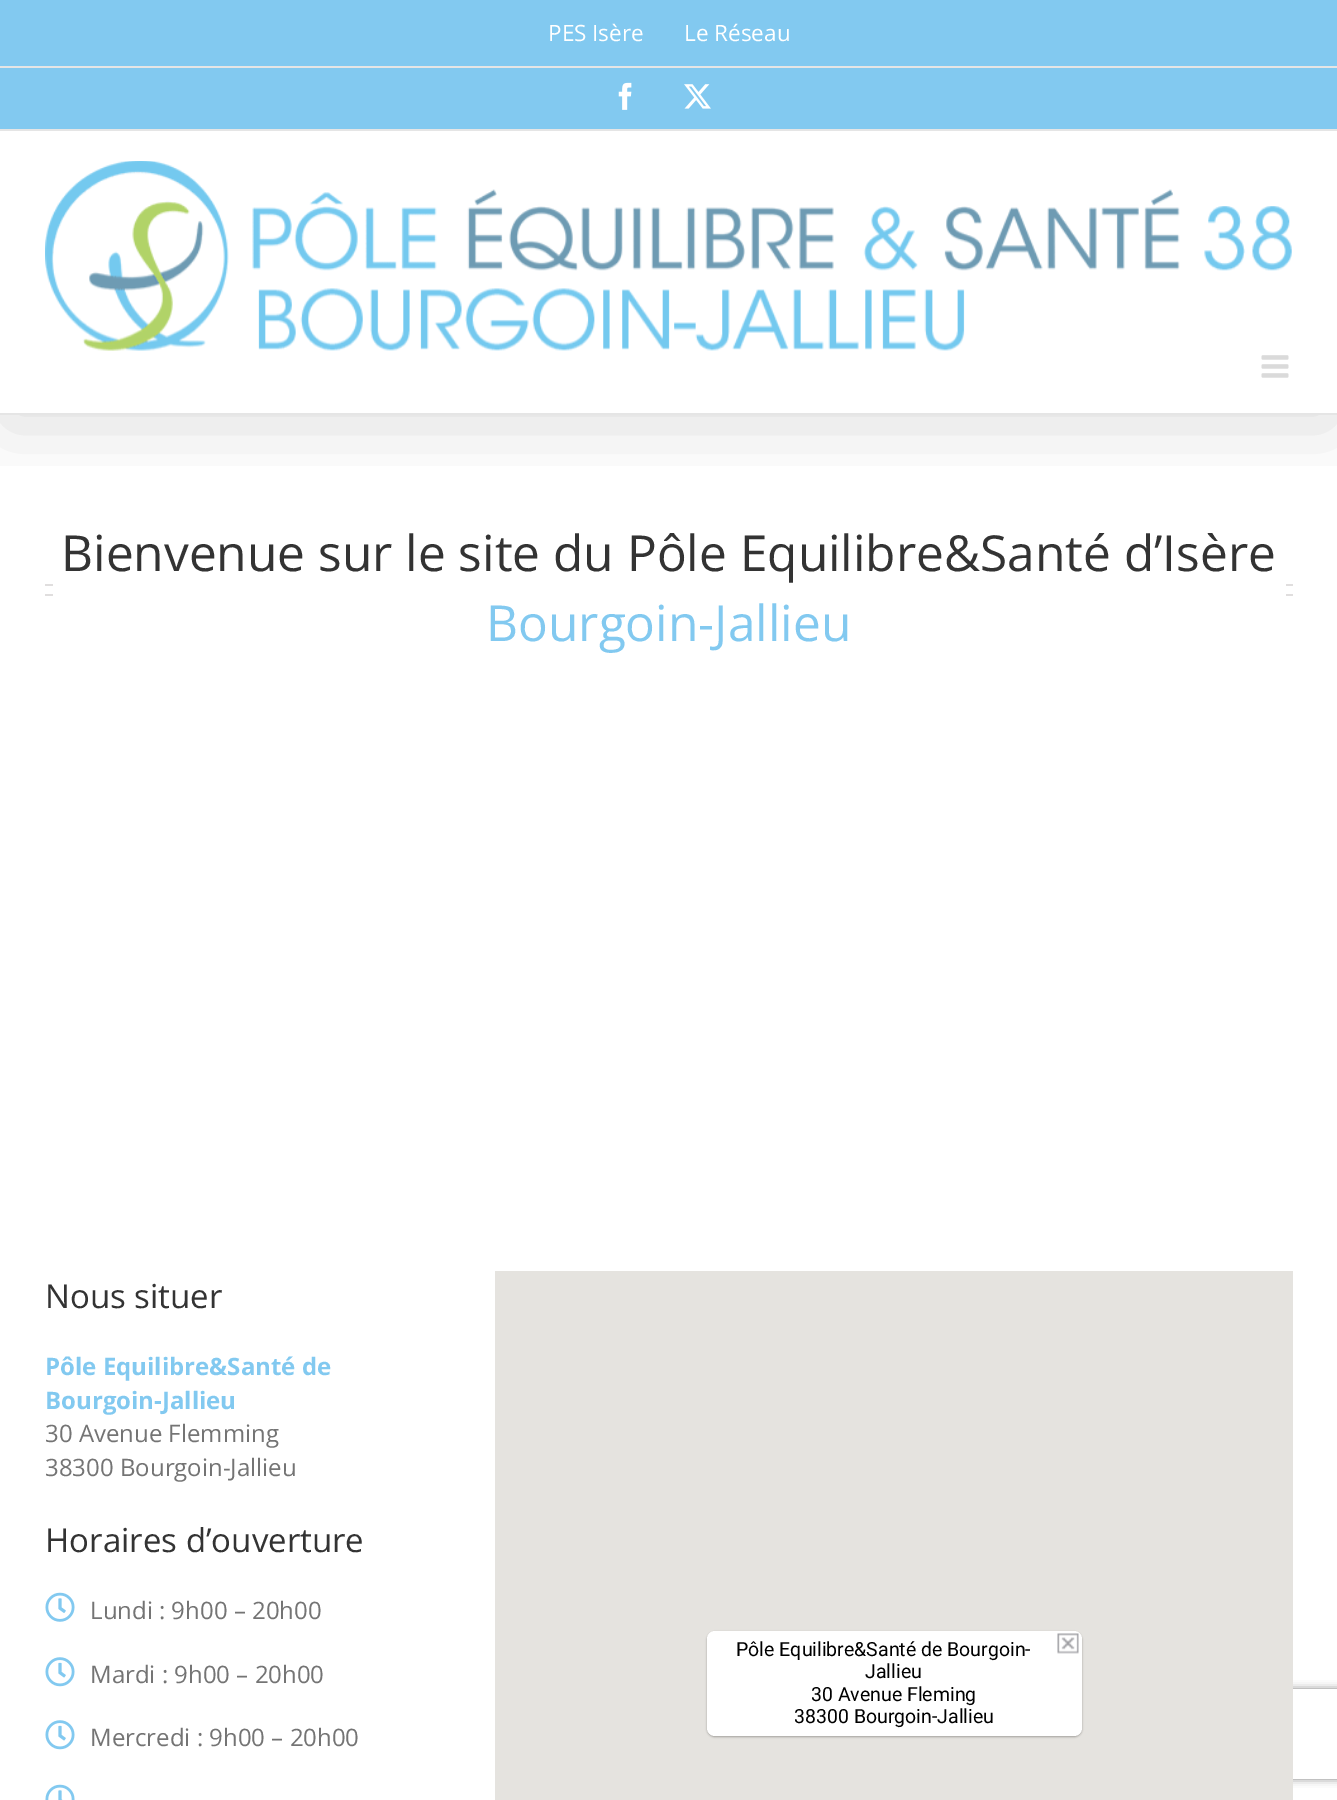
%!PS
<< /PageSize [1337 1800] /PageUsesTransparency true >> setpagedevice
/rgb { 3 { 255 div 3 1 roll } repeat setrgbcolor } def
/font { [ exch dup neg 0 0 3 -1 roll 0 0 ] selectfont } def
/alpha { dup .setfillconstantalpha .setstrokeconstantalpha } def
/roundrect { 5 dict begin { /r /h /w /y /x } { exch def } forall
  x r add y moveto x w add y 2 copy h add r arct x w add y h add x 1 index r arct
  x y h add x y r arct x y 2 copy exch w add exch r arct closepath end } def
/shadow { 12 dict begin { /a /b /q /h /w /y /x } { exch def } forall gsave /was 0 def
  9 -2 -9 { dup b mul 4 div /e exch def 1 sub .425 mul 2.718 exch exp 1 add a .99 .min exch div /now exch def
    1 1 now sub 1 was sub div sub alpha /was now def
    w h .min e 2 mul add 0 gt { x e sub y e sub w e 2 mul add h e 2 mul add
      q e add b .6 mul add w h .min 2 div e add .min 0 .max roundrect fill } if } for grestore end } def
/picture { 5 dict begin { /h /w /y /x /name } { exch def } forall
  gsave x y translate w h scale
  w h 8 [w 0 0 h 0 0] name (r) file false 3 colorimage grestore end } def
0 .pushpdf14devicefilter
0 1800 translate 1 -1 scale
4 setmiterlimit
255 255 255 rgb
0 0 1337 1800 rectfill
gsave
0 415 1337 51 rectclip
0 0 0 rgb
3 18 1332 408 0 37.5 0.14 shadow
grestore
[
  [0 0 1337 129 130 201 240]
  [0 129 1337 2 229 229 229]
  [0 66 1337 2 229 229 229]
] { aload pop rgb rectfill } forall
(img/1.rgb) 618 82 14 28 picture
(img/2.rgb) 684 84 27 25 picture
0 413 1337 2 rectfill
(img/3.rgb) 45 161 1247 190 picture
(img/4.rgb) 1261 355 28 23 picture
[
  [45 584 8 2 224 222 222]
  [45 594 8 2 224 222 222]
  [1286 584 7 2 224 222 222]
  [1286 594 7 2 224 222 222]
] { aload pop rgb rectfill } forall
(img/5.rgb) 45 1592 30 30 picture
(img/6.rgb) 45 1657 30 30 picture
(img/6.rgb) 45 1720 30 30 picture
(img/7.rgb) 45 1784 30 16 picture
gsave
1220 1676 moveto 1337 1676 lineto 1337 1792 lineto 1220 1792 lineto closepath 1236 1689 moveto 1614 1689 lineto 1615.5 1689 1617 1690.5 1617 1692 curveto 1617 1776 lineto 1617 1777.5 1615.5 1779 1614 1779 curveto 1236 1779 lineto 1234.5 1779 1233 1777.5 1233 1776 curveto 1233 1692 lineto 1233 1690.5 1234.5 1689 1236 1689 curveto closepath eoclip newpath
128 128 128 rgb
1233 1689 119 90 3 4 1 shadow
grestore
229 227 223 rgb
495 1271 798 529 rectfill
0 0 0 rgb
707 1632 375 105 8 1 0.3 shadow
255 255 255 rgb
707 1631 375 105 8 roundrect fill
(img/8.rgb) 1057 1633 22 21 picture
/OpenSans-Regular 22.5 font
548 41 moveto (PES Isère) show
684 41 moveto (Le Réseau) show
/OpenSans-Regular 49.6 font
51 51 51 rgb
61 571 moveto (Bienvenue sur le site du Pôle Equilibre&Santé d’Isère) show
130 201 240 rgb
486 641 moveto (Bourgoin-Jallieu) show
/OpenSans-Regular 33 font
51 51 51 rgb
45 1308 moveto (Nous situer) show
/OpenSans-Bold 24 font
130 201 240 rgb
45 1375 moveto (Pôle Equilibre&Santé de) show
45 1409 moveto (Bourgoin-Jallieu) show
/OpenSans-Regular 24 font
116 116 116 rgb
45 1442 moveto (30 Avenue Flemming) show
45 1476 moveto (38300 Bourgoin-Jallieu) show
/OpenSans-Regular 33 font
51 51 51 rgb
45 1552 moveto (Horaires d’ouverture) show
/OpenSans-Regular 24 font
116 116 116 rgb
[
  [(Lundi : 9h00 – 20h00) 90 1619]
  [(Mardi : 9h00 – 20h00) 90 1683]
  [(Mercredi : 9h00 – 20h00) 90 1746]
] { aload pop moveto show } forall
/Roboto-Regular 19.5 font
0 0 0 rgb
[
  [(Pôle Equilibre&Santé de Bourgoin-) 736 1656]
  [(Jallieu) 865 1678]
  [(30 Avenue Fleming) 811 1701]
  [(38300 Bourgoin-Jallieu) 794 1723]
] { aload pop moveto show } forall
.poppdf14devicefilter showpage
